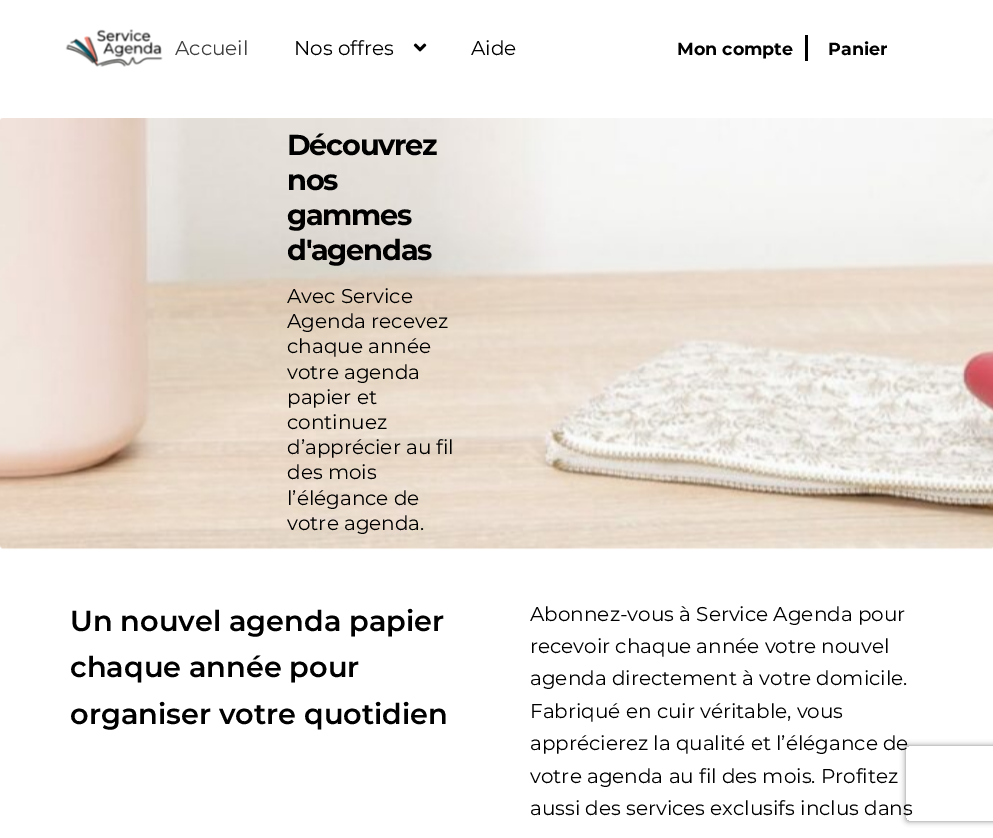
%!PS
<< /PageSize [993 838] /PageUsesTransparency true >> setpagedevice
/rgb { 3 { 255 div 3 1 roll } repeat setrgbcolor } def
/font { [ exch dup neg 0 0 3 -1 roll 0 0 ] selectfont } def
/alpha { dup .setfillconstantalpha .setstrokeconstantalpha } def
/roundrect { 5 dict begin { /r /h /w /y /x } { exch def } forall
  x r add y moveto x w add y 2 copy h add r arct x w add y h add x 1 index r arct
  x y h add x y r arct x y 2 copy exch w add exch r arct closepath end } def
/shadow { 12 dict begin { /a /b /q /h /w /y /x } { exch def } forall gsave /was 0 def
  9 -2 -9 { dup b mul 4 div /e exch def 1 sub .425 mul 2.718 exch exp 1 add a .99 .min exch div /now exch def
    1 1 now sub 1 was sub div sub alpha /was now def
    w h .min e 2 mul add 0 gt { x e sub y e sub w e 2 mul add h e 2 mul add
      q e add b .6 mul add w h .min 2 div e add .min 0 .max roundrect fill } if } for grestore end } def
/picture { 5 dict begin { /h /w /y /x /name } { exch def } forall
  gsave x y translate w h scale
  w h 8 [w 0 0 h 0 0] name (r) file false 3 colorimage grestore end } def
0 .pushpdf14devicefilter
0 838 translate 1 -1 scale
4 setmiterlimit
255 255 255 rgb
0 0 993 838 rectfill
(img/1.rgb) 65 29 98 38 picture
(img/2.rgb) 413 43 14 9 picture
0 0 0 rgb
805 35 3 26 rectfill
(img/3.rgb) 0 118 993 432 picture
gsave
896 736 moveto 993 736 lineto 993 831 lineto 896 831 lineto closepath 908.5 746 moveto 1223.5 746 lineto 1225 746 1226 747 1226 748.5 curveto 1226 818.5 lineto 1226 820 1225 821 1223.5 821 curveto 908.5 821 lineto 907 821 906 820 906 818.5 curveto 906 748.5 lineto 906 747 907 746 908.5 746 curveto closepath eoclip newpath
128 128 128 rgb
906 746 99 75 2.5 3 1 shadow
grestore
/Montserrat-Regular 20 font
65 65 65 rgb
175 55 moveto (Accueil) show
0 0 0 rgb
294 55 moveto (Nos offres) show
471 55 moveto (Aide) show
/Montserrat-Bold 17.5 font
677 55 moveto (Mon compte) show
828 55 moveto (Panier) show
/Montserrat-Bold 28.75 font
287 155 moveto -1.25 0 (Découvrez) ashow
287 190 moveto -1.25 0 (nos) ashow
287 225 moveto -1.25 0 (gammes) ashow
287 260 moveto -1.25 0 (d'agendas) ashow
/Montserrat-Regular 20 font
[
  [(Avec Service) 287 303]
  [(Agenda recevez) 287 328]
  [(chaque année) 287 353]
  [(votre agenda) 287 379]
  [(papier et) 287 404]
  [(continuez) 287 429]
  [(d’apprécier au fil) 287 454]
  [(des mois) 287 479]
  [(l’élégance de) 287 505]
  [(votre agenda.) 287 530]
] { aload pop moveto show } forall
/Montserrat-SemiBold 28.75 font
[
  [(Un nouvel agenda papier) 70 631]
  [(chaque année pour) 70 677]
  [(organiser votre quotidien) 70 724]
] { aload pop moveto show } forall
/Montserrat-Regular 20 font
[
  [(Abonnez-vous à Service Agenda pour) 530 621]
  [(recevoir chaque année votre nouvel) 530 653]
  [(agenda directement à votre domicile.) 530 685]
  [(Fabriqué en cuir véritable, vous) 530 718]
  [(apprécierez la qualité et l’élégance de) 530 750]
  [(votre agenda au fil des mois. Profitez) 530 783]
  [(aussi des services exclusifs inclus dans) 530 815]
] { aload pop moveto show } forall
.poppdf14devicefilter showpage
